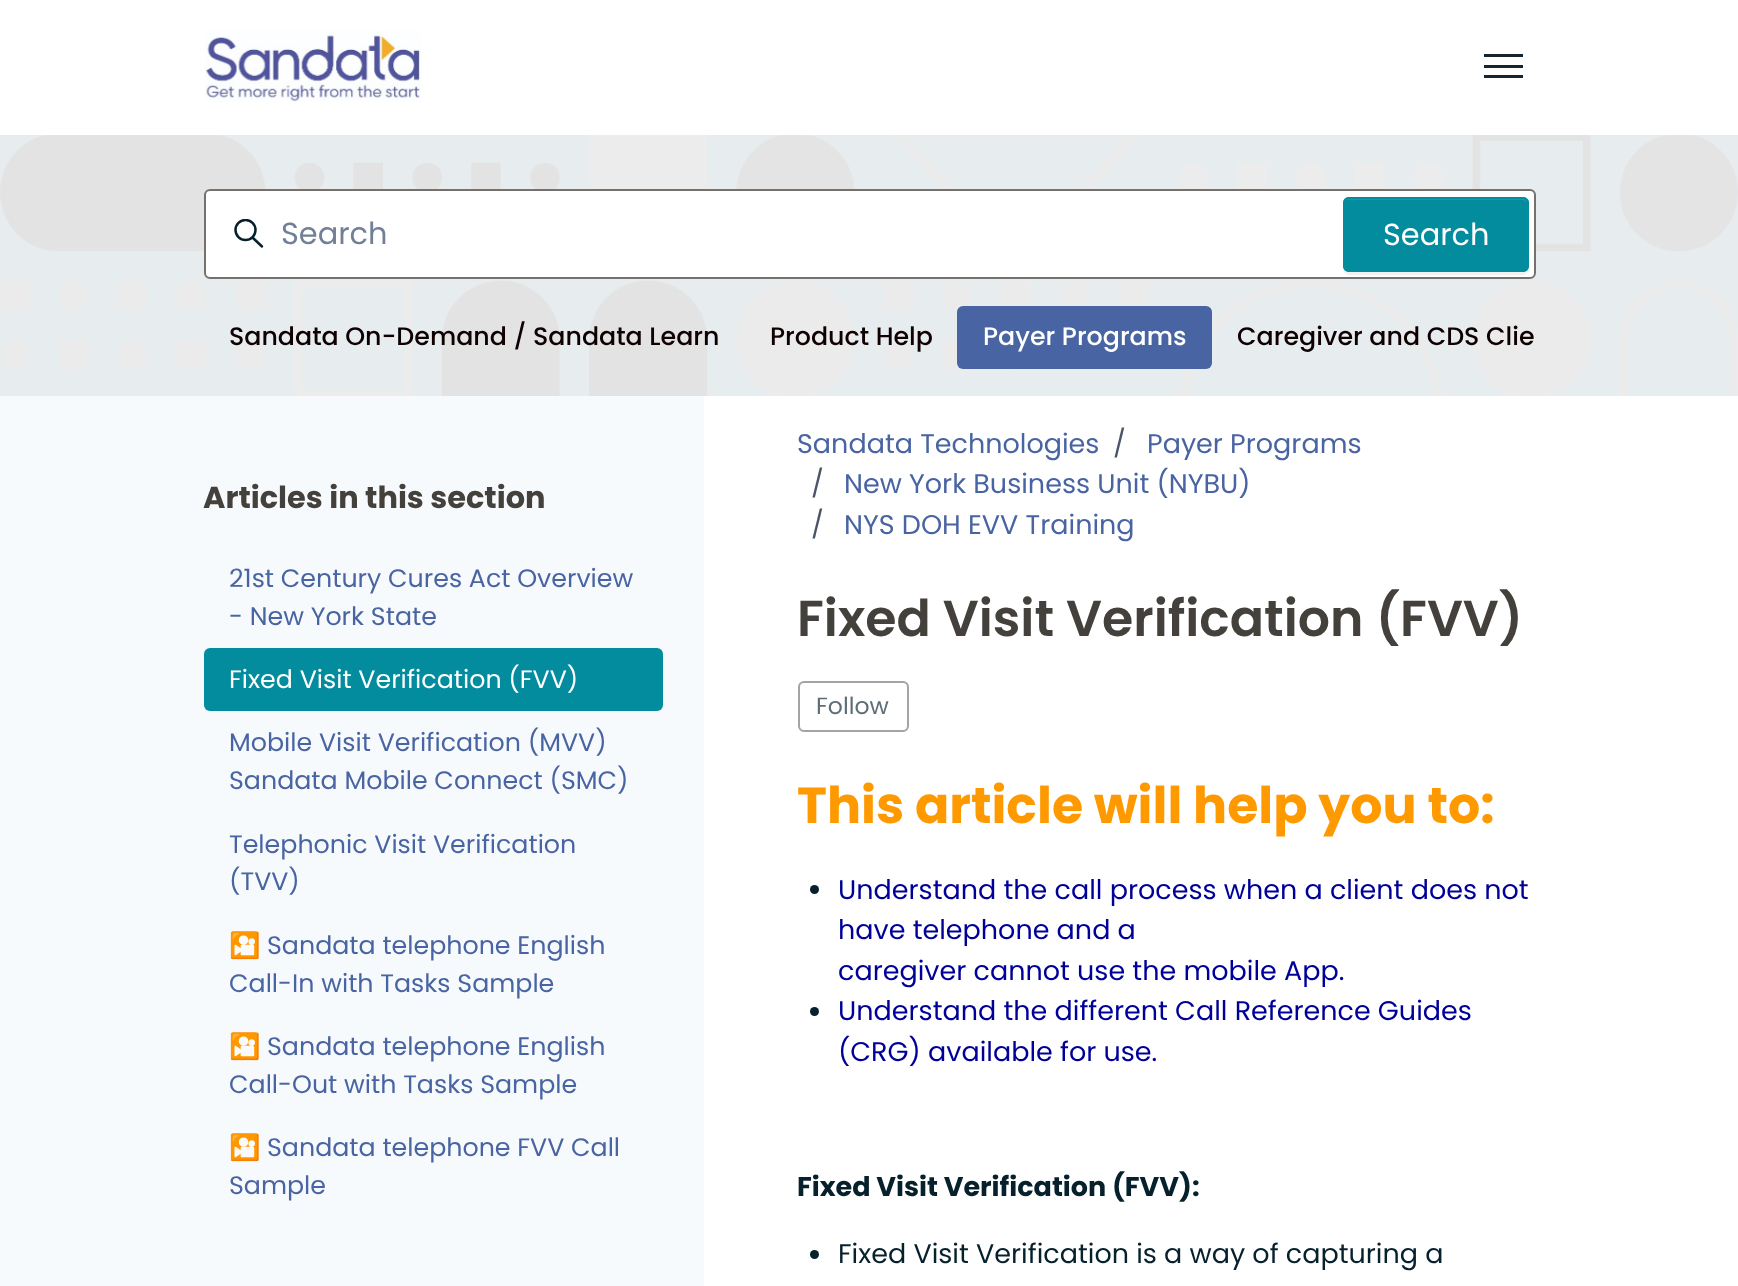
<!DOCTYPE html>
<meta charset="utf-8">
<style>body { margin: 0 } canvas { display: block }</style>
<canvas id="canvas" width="1738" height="1286"></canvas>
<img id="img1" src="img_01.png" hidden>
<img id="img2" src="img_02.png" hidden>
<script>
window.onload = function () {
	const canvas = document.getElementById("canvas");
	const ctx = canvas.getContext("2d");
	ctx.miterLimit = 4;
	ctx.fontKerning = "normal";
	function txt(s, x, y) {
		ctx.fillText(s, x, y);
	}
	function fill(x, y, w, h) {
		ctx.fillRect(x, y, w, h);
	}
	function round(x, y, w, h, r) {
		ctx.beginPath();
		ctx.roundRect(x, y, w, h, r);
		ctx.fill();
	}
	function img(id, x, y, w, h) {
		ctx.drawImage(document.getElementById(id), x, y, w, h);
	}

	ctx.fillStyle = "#FFFFFF";
	fill(0, 0, 1738, 1286);
	img("img1", 205, 30, 216, 72);
	ctx.fillStyle = "#162432";
	fill(1484, 65, 39, 3);
	fill(1484, 54, 39, 3);
	fill(1484, 75, 39, 3);
	ctx.fillStyle = "#E7EDEF";
	fill(0, 135, 1738, 261);
	img("img2", 0, 135, 1738, 261);
	ctx.fillStyle = "#FFFFFF";
	ctx.beginPath();
	ctx.roundRect(205, 190, 1330, 88, 5);
	ctx.fill();
	ctx.strokeStyle = "#76716D";
	ctx.lineWidth = 2;
	ctx.stroke();
	ctx.save();
	ctx.beginPath();
	ctx.rect(234, 219, 30, 30);
	ctx.clip();
	ctx.beginPath();
	ctx.arc(245.5, 230, 10, 0, Math.PI * 2);
	ctx.strokeStyle = "#06202C";
	ctx.lineWidth = 2.5;
	ctx.stroke();
	ctx.restore();
	ctx.beginPath();
	ctx.moveTo(262, 246.5);
	ctx.lineTo(253, 238);
	ctx.strokeStyle = "#06202C";
	ctx.lineWidth = 2.5;
	ctx.lineCap = "round";
	ctx.stroke();
	ctx.fillStyle = "#F2F2F2";
	ctx.beginPath();
	ctx.moveTo(1343, 268);
	ctx.lineTo(1343, 269);
	ctx.bezierCurveTo(1343, 272, 1346, 275, 1349, 275);
	ctx.lineTo(1523, 275);
	ctx.bezierCurveTo(1526, 275, 1529, 272, 1529, 269);
	ctx.lineTo(1529, 206);
	ctx.lineTo(1528, 204);
	ctx.lineTo(1528, 266);
	ctx.bezierCurveTo(1528, 269, 1526, 272, 1522, 272);
	ctx.lineTo(1348, 272);
	ctx.bezierCurveTo(1346, 272, 1344, 270, 1343, 268);
	ctx.closePath();
	ctx.fill();
	ctx.fillStyle = "#038C9E";
	round(1343, 197, 186, 75, 6);
	ctx.fillStyle = "#1C98A8";
	ctx.beginPath();
	ctx.moveTo(1348, 200);
	ctx.lineTo(1522, 200);
	ctx.bezierCurveTo(1525, 200, 1527, 202, 1527, 204);
	ctx.bezierCurveTo(1527, 201, 1526, 199, 1523, 198);
	ctx.lineTo(1348, 198);
	ctx.bezierCurveTo(1345, 199, 1344, 201, 1344, 204);
	ctx.bezierCurveTo(1344, 202, 1346, 200, 1348, 200);
	ctx.closePath();
	ctx.fill();
	ctx.beginPath();
	ctx.roundRect(1344, 198, 184, 73, 5);
	ctx.strokeStyle = "#038C9E";
	ctx.lineWidth = 2;
	ctx.stroke();
	ctx.fillStyle = "#4964A2";
	round(957, 306, 255, 63, 6);
	ctx.fillStyle = "#F7FAFC";
	fill(0, 396, 704, 890);
	ctx.fillStyle = "#038C9E";
	round(204, 648, 459, 63, 6);
	ctx.beginPath();
	ctx.roundRect(799, 682, 109, 49, 5);
	ctx.strokeStyle = "#A6A3A0";
	ctx.stroke();
	ctx.fillStyle = "#06202C";
	ctx.beginPath();
	ctx.arc(814.5, 889.5, 4.5, 0, Math.PI * 2);
	ctx.fill();
	ctx.beginPath();
	ctx.arc(814.5, 1011.5, 4.5, 0, Math.PI * 2);
	ctx.fill();
	ctx.beginPath();
	ctx.arc(814.5, 1254.5, 4.5, 0, Math.PI * 2);
	ctx.fill();
	ctx.font = "30.4px Poppins";
	ctx.fillStyle = "#718096";
	txt("Search", 281, 244);
	ctx.fillStyle = "#FFFFFF";
	txt("Search", 1383, 245);
	ctx.font = "500 25.3px Poppins";
	ctx.fillStyle = "#0F0101";
	txt("Sandata On-Demand / Sandata Learn", 229, 345);
	txt("Product Help", 770, 345);
	ctx.fillStyle = "#FFFFFF";
	txt("Payer Programs", 983, 345);
	ctx.fillStyle = "#0F0101";
	txt("Caregiver and CDS Clie", 1237, 345);
	ctx.font = "bold 30.4px Poppins";
	ctx.fillStyle = "#44413D";
	txt("Articles in this section", 203, 508);
	ctx.font = "25.3px Poppins";
	ctx.fillStyle = "#4964A2";
	txt("21st Century Cures Act Overview", 229, 587);
	txt("- New York State", 229, 625);
	ctx.fillStyle = "#FFFFFF";
	txt("Fixed Visit Verification (FVV)", 229, 688);
	ctx.fillStyle = "#4964A2";
	txt("Mobile Visit Verification (MVV)", 229, 751);
	txt("Sandata Mobile Connect (SMC)", 229, 789);
	txt("Telephonic Visit Verification", 229, 853);
	txt("(TVV)", 229, 890);
	ctx.font = "25.3px Noto Color Emoji";
	txt("🎦", 229, 954);
	ctx.font = "25.3px Poppins";
	txt("Sandata telephone English", 267, 954);
	txt("Call-In with Tasks Sample", 229, 992);
	ctx.font = "25.3px Noto Color Emoji";
	txt("🎦", 229, 1055);
	ctx.font = "25.3px Poppins";
	txt("Sandata telephone English", 267, 1055);
	txt("Call-Out with Tasks Sample", 229, 1093);
	ctx.font = "25.3px Noto Color Emoji";
	txt("🎦", 229, 1156);
	ctx.font = "25.3px Poppins";
	txt("Sandata telephone FVV Call", 267, 1156);
	txt("Sample", 229, 1194);
	ctx.font = "27px Poppins";
	txt("Sandata Technologies", 797, 453);
	ctx.fillStyle = "#4A5568";
	txt("/", 1113, 453);
	ctx.fillStyle = "#4964A2";
	txt("Payer Programs", 1147, 453);
	ctx.fillStyle = "#4A5568";
	txt("/", 811, 493);
	ctx.fillStyle = "#4964A2";
	txt("New York Business Unit (NYBU)", 844, 493);
	ctx.fillStyle = "#4A5568";
	txt("/", 811, 534);
	ctx.fillStyle = "#4964A2";
	txt("NYS DOH EVV Training", 844, 534);
	ctx.font = "600 50.6px Poppins";
	ctx.fillStyle = "#44413D";
	txt("Fixed Visit Verification (FVV)", 797, 636);
	ctx.font = "23.5px Poppins";
	ctx.fillStyle = "#5D6E76";
	txt("Follow", 816, 714);
	ctx.font = "bold 50.6px Poppins";
	ctx.fillStyle = "#FF9900";
	txt("This article will help you to:", 797, 823);
	ctx.font = "27px Poppins";
	ctx.fillStyle = "#000099";
	txt("Understand the call process when a client does not", 838, 899);
	txt("have telephone and a", 838, 939);
	txt("caregiver cannot use the mobile App.", 838, 980);
	txt("Understand the different Call Reference Guides", 838, 1020);
	txt("(CRG) available for use.", 838, 1061);
	ctx.font = "bold 27px Poppins";
	ctx.fillStyle = "#06202C";
	txt("Fixed Visit Verification (FVV):", 797, 1196);
	ctx.font = "27px Poppins";
	txt("Fixed Visit Verification is a way of capturing a", 838, 1263);
};
</script>
